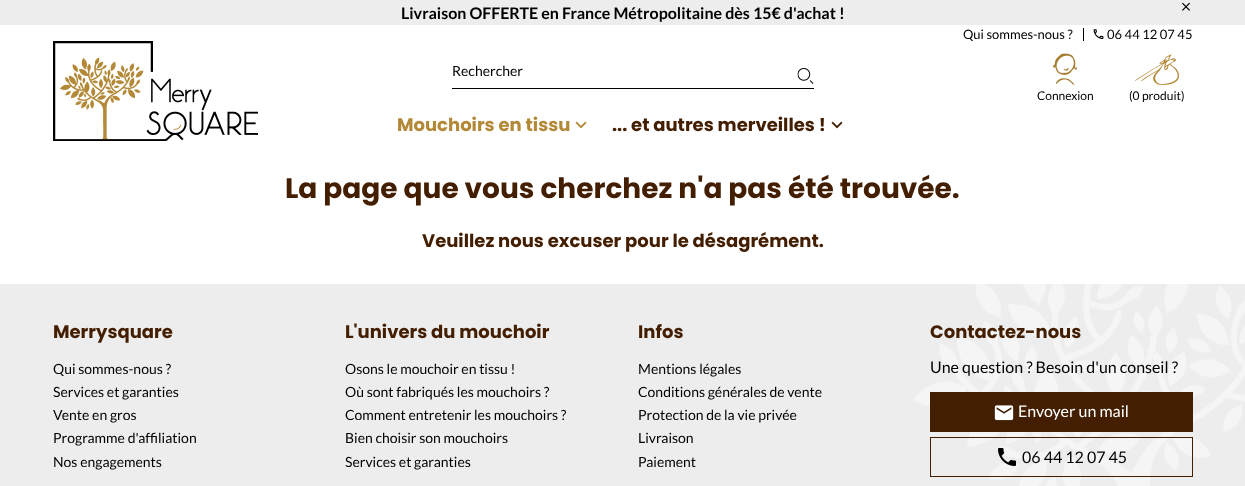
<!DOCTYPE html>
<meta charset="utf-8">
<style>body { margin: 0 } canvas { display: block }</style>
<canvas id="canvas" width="1245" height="486"></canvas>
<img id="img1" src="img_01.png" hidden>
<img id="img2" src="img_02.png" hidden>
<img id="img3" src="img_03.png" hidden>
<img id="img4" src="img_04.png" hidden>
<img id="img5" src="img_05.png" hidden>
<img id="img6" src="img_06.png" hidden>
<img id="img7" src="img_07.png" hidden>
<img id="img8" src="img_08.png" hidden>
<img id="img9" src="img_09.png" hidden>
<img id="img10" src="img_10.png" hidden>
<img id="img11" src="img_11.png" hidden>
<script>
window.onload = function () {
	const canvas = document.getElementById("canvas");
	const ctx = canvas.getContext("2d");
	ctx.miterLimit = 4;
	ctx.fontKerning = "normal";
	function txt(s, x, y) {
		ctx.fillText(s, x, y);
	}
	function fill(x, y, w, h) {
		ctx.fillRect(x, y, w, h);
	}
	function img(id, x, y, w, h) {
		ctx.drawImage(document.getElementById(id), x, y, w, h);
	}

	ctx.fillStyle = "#FFFFFF";
	fill(0, 0, 1245, 486);
	ctx.fillStyle = "#EDEDED";
	fill(0, 0, 1245, 25);
	img("img1", 1182, 2, 8, 9);
	ctx.fillStyle = "#000000";
	fill(1083, 28, 1, 13);
	img("img2", 1093, 29, 11, 10);
	img("img3", 53, 41, 205, 100);
	fill(452, 88, 362, 1);
	img("img4", 797, 68, 17, 16);
	img("img5", 1053, 53, 24, 32);
	img("img6", 1135, 54, 44, 31);
	img("img7", 575, 121, 12, 8);
	img("img8", 831, 121, 12, 8);
	ctx.fillStyle = "#EDEDED";
	fill(0, 284, 914, 202);
	img("img9", 914, 284, 331, 202);
	ctx.fillStyle = "#431E00";
	fill(930, 392, 263, 40);
	img("img10", 994, 405, 20, 16);
	ctx.strokeStyle = "#431E00";
	ctx.strokeRect(930.5, 437.5, 262, 39);
	img("img11", 998, 448, 18, 18);
	ctx.font = "bold 16px Lato";
	ctx.fillStyle = "#000000";
	txt("Livraison OFFERTE en France Métropolitaine dès 15€ d'achat !", 401, 19);
	ctx.font = "13px Lato";
	txt("Qui sommes-nous ?", 963, 39);
	txt("06 44 12 07 45", 1107, 39);
	ctx.font = "14px Lato";
	txt("Rechercher", 452, 76);
	ctx.font = "12px Lato";
	txt("Connexion", 1037, 100);
	txt("(0 produit)", 1129, 100);
	ctx.font = "bold 18px Poppins";
	ctx.fillStyle = "#B38836";
	txt("Mouchoirs en tissu", 397, 131);
	ctx.fillStyle = "#431E00";
	txt("... et autres merveilles !", 612, 131);
	ctx.font = "bold 28px Poppins";
	txt("La page que vous cherchez n'a pas été trouvée.", 285, 198);
	ctx.font = "bold 18px Poppins";
	txt("Veuillez nous excuser pour le désagrément.", 422, 247);
	txt("Merrysquare", 53, 338);
	ctx.font = "14px Lato";
	ctx.fillStyle = "#000000";
	txt("Qui sommes-nous ?", 53, 374);
	txt("Services et garanties", 53, 397);
	txt("Vente en gros", 53, 420);
	txt("Programme d'affiliation", 53, 443);
	txt("Nos engagements", 53, 467);
	ctx.font = "bold 18px Poppins";
	ctx.fillStyle = "#431E00";
	txt("L'univers du mouchoir", 345, 338);
	ctx.font = "14px Lato";
	ctx.fillStyle = "#000000";
	txt("Osons le mouchoir en tissu !", 345, 374);
	txt("Où sont fabriqués les mouchoirs ?", 345, 397);
	txt("Comment entretenir les mouchoirs ?", 345, 420);
	txt("Bien choisir son mouchoirs", 345, 443);
	txt("Services et garanties", 345, 467);
	ctx.font = "bold 18px Poppins";
	ctx.fillStyle = "#431E00";
	txt("Infos", 638, 338);
	ctx.font = "14px Lato";
	ctx.fillStyle = "#000000";
	txt("Mentions légales", 638, 374);
	txt("Conditions générales de vente", 638, 397);
	txt("Protection de la vie privée", 638, 420);
	txt("Livraison", 638, 443);
	txt("Paiement", 638, 467);
	ctx.font = "bold 18px Poppins";
	ctx.fillStyle = "#431E00";
	txt("Contactez-nous", 930, 338);
	ctx.font = "16px Lato";
	ctx.fillStyle = "#000000";
	txt("Une question ? Besoin d'un conseil ?", 930, 373);
	ctx.fillStyle = "#FFFFFF";
	txt("Envoyer un mail", 1018, 417);
	ctx.fillStyle = "#000000";
	txt("06 44 12 07 45", 1022, 463);
};
</script>
